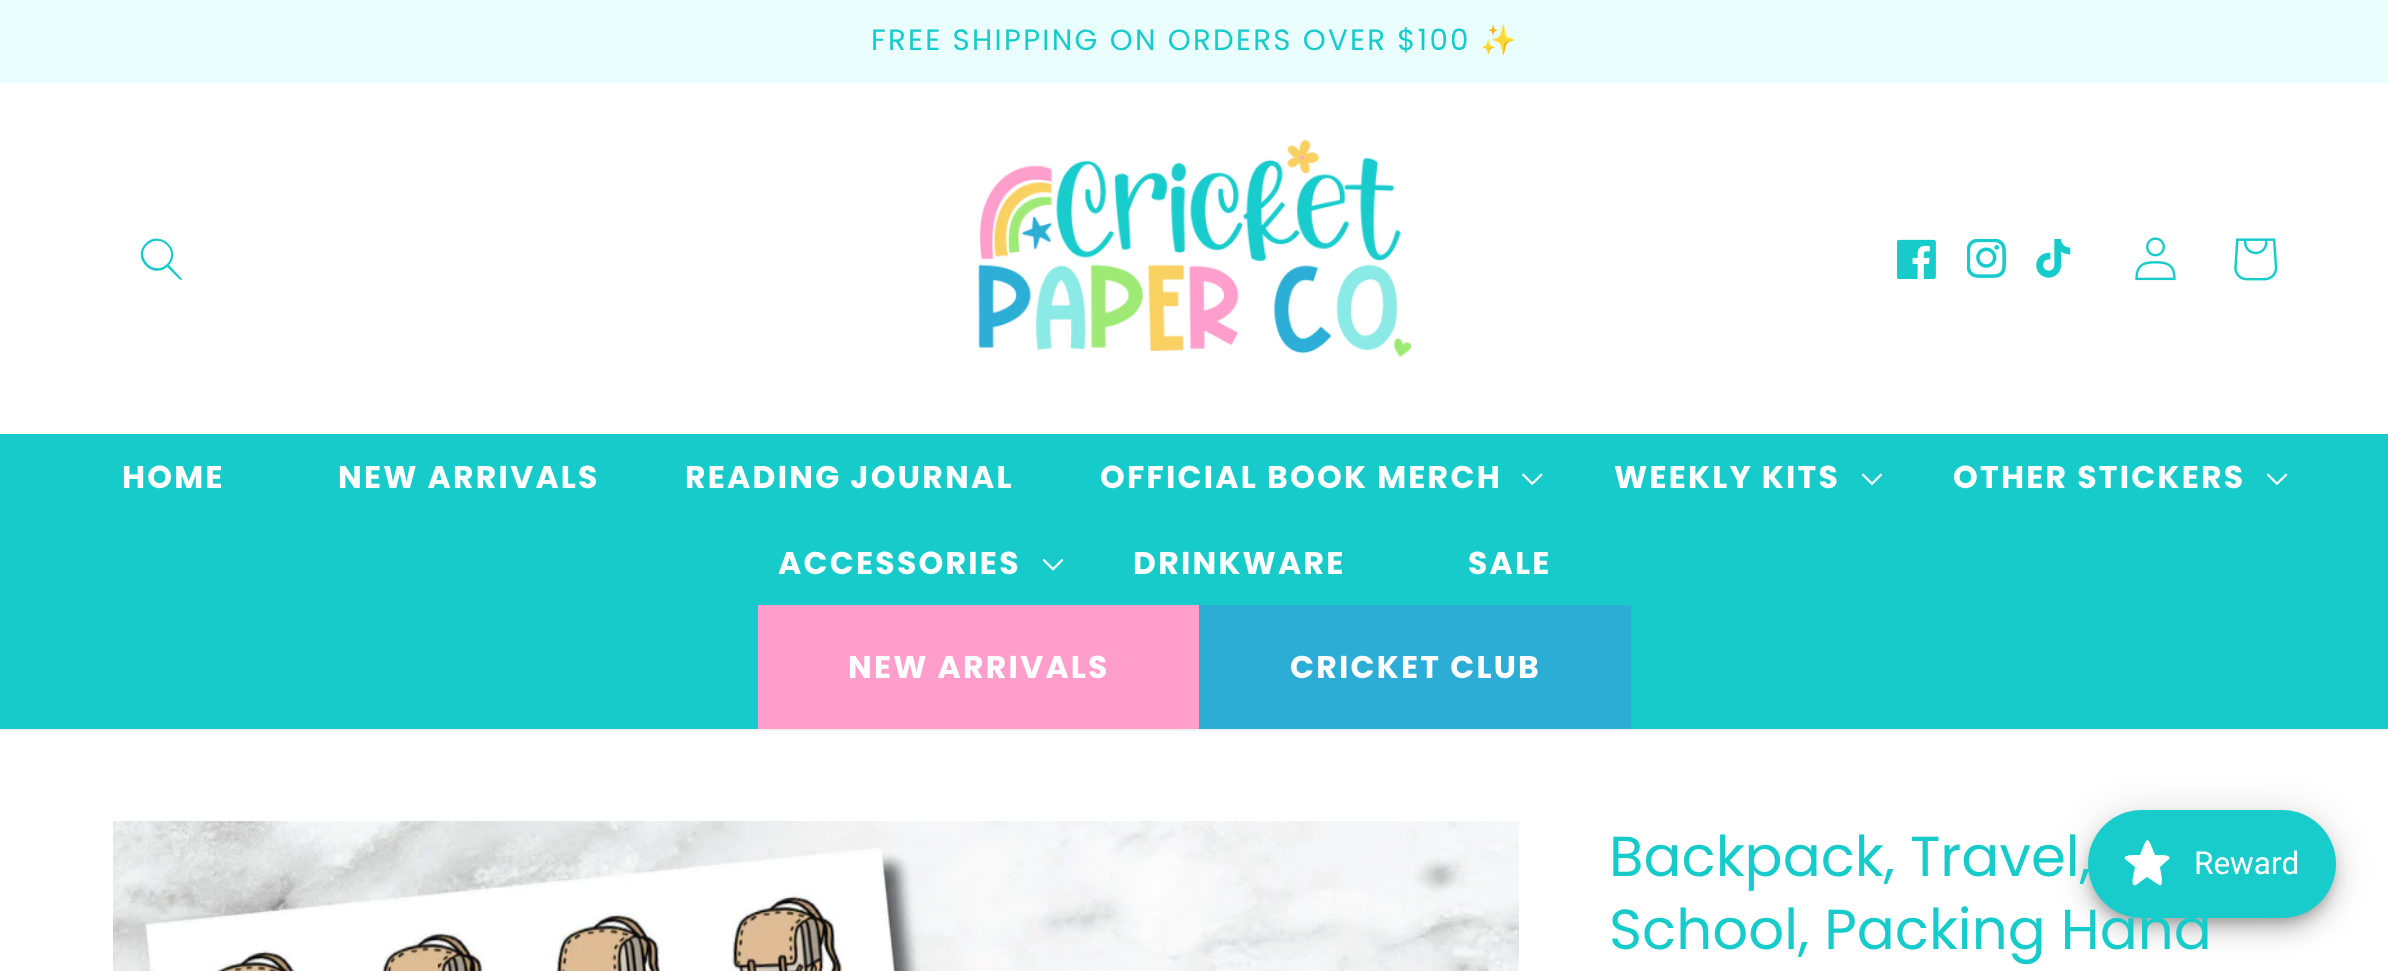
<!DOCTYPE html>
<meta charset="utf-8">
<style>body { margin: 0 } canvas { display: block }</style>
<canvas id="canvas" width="2388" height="971"></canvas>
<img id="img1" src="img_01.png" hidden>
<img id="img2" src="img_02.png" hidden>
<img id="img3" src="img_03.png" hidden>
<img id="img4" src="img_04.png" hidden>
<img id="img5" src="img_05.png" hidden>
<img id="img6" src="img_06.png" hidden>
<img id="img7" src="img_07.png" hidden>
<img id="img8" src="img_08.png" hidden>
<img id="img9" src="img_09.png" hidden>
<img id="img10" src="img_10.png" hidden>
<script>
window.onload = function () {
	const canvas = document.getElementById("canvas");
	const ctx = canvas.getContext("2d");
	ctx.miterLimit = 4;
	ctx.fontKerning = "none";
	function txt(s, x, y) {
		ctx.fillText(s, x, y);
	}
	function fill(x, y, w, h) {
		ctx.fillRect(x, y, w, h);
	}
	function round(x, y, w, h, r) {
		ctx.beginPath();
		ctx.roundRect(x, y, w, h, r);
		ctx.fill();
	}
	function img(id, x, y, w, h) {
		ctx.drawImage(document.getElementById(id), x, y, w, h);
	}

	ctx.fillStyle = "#FFFFFF";
	fill(0, 0, 2388, 971);
	ctx.fillStyle = "#EAFFFD";
	fill(0, 0, 2388, 83);
	ctx.fillStyle = "#F2F2F2";
	fill(0, 729, 2388, 2);
	ctx.fillStyle = "#18CBCB";
	ctx.beginPath();
	ctx.moveTo(167, 264);
	ctx.bezierCurveTo(154, 277, 135, 257, 147, 245);
	ctx.bezierCurveTo(160, 232, 180, 251, 167, 264);
	ctx.closePath();
	ctx.moveTo(167, 267);
	ctx.bezierCurveTo(152, 280, 131, 257, 146, 243);
	ctx.bezierCurveTo(160, 229, 183, 250, 169, 265);
	ctx.lineTo(182, 279);
	ctx.lineTo(182, 280);
	ctx.bezierCurveTo(180, 281, 169, 268, 167, 267);
	ctx.closePath();
	ctx.fill("evenodd");
	img("img1", 978, 139, 434, 218);
	img("img2", 1897, 239, 39, 40);
	img("img3", 1967, 239, 39, 39);
	img("img4", 2036, 239, 35, 39);
	img("img5", 2135, 237, 41, 44);
	img("img6", 2234, 238, 44, 43);
	fill(0, 434, 2388, 295);
	img("img7", 1522, 473, 21, 12);
	img("img8", 1861, 473, 22, 12);
	img("img8", 2266, 473, 22, 12);
	img("img9", 1042, 559, 22, 12);
	ctx.fillStyle = "#FF9DCB";
	fill(758, 605, 441, 124);
	ctx.fillStyle = "#2BADD5";
	fill(1199, 605, 432, 124);
	img("img10", 113, 821, 1406, 150);
	ctx.fillStyle = "rgba(0, 0, 0, 0.12)";
	ctx.filter = "blur(20px)";
	ctx.beginPath();
	ctx.roundRect(2088, 812, 248, 108, 54);
	ctx.fill();
	ctx.filter = "none";
	ctx.fillStyle = "rgba(0, 0, 0, 0.14)";
	ctx.filter = "blur(11px)";
	ctx.beginPath();
	ctx.roundRect(2088, 824, 248, 108, 54);
	ctx.fill();
	ctx.filter = "none";
	ctx.fillStyle = "rgba(0, 0, 0, 0.2)";
	ctx.filter = "blur(5.5px)";
	ctx.beginPath();
	ctx.roundRect(2090, 819, 243, 104, 52);
	ctx.fill();
	ctx.filter = "none";
	ctx.letterSpacing = "2.25px";
	ctx.font = "29.25px Poppins";
	ctx.fillStyle = "#18CBCB";
	txt("FREE SHIPPING ON ORDERS OVER $100", 871, 50);
	ctx.font = "29.25px Noto Color Emoji";
	txt("✨", 1480, 50);
	ctx.font = "bold 31.5px Poppins";
	ctx.fillStyle = "#FFFFFF";
	txt("HOME", 122, 488);
	txt("NEW ARRIVALS", 338, 488);
	txt("READING JOURNAL", 685, 488);
	txt("OFFICIAL BOOK MERCH", 1100, 488);
	txt("WEEKLY KITS", 1614, 488);
	txt("OTHER STICKERS", 1953, 488);
	txt("ACCESSORIES", 778, 574);
	txt("DRINKWARE", 1133, 574);
	txt("SALE", 1468, 574);
	txt("NEW ARRIVALS", 848, 678);
	txt("CRICKET CLUB", 1290, 678);
	ctx.letterSpacing = "0px";
	ctx.font = "56.25px Poppins";
	ctx.fillStyle = "#18CBCB";
	txt("Backpack, Travel,", 1609, 876);
	txt("School, Packing Hand", 1609, 949);
	ctx.fillStyle = "#18CCCC";
	round(2088, 810, 248, 108, 54);
	ctx.fillStyle = "#FFFFFF";
	ctx.beginPath();
	ctx.moveTo(2135, 867);
	ctx.lineTo(2125, 859);
	ctx.bezierCurveTo(2122, 854, 2138, 855, 2140, 855);
	ctx.bezierCurveTo(2148, 835, 2147, 835, 2155, 855);
	ctx.bezierCurveTo(2157, 855, 2173, 854, 2169, 859);
	ctx.lineTo(2160, 867);
	ctx.bezierCurveTo(2160, 869, 2165, 888, 2159, 885);
	ctx.lineTo(2147, 877);
	ctx.lineTo(2136, 885);
	ctx.bezierCurveTo(2129, 888, 2135, 869, 2135, 867);
	ctx.closePath();
	ctx.fill("evenodd");
	ctx.font = "31.5px Roboto";
	txt("Reward", 2194, 874);
};
</script>
